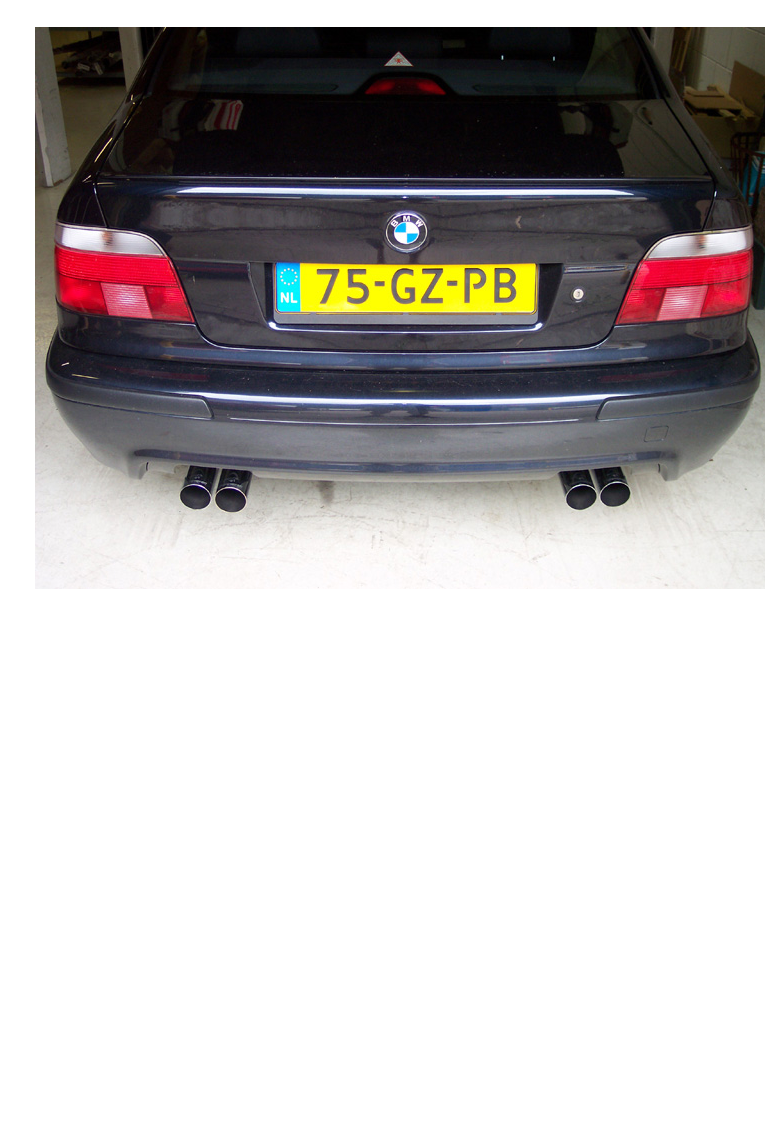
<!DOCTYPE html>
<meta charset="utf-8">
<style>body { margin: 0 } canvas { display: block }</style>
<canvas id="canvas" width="765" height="1144"></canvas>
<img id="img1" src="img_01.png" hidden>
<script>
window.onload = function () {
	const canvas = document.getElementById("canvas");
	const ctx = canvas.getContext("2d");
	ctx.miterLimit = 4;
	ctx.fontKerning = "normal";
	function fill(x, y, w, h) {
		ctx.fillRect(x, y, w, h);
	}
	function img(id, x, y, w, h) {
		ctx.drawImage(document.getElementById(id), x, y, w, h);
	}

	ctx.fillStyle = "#FFFFFF";
	fill(0, 0, 765, 1144);
	img("img1", 35, 27, 730, 562);
};
</script>
